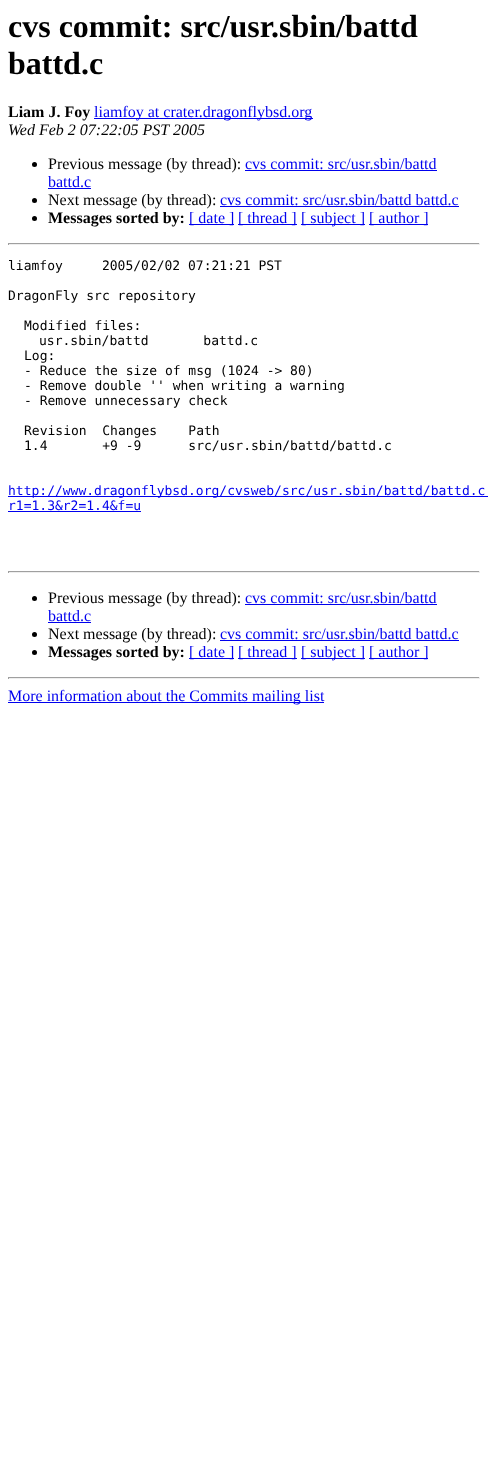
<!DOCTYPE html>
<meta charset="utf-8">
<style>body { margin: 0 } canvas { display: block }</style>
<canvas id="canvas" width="488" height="1467"></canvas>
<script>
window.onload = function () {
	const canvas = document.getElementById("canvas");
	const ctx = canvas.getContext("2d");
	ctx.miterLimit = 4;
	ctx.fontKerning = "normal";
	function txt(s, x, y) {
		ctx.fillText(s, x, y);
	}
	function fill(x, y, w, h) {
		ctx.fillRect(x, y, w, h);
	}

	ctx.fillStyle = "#FFFFFF";
	fill(0, 0, 488, 1467);
	ctx.fillStyle = "#0000EE";
	fill(94, 118, 219, 1);
	ctx.fillStyle = "#000000";
	ctx.beginPath();
	ctx.arc(34.5, 164.5, 2.5, 0, Math.PI * 2);
	ctx.fill();
	ctx.fillStyle = "#0000EE";
	fill(245, 170, 192, 1);
	fill(48, 188, 43, 1);
	ctx.fillStyle = "#000000";
	ctx.beginPath();
	ctx.arc(34.5, 200.5, 2.5, 0, Math.PI * 2);
	ctx.fill();
	ctx.fillStyle = "#0000EE";
	fill(220, 206, 239, 1);
	ctx.fillStyle = "#000000";
	ctx.beginPath();
	ctx.arc(34.5, 218.5, 2.5, 0, Math.PI * 2);
	ctx.fill();
	ctx.fillStyle = "#0000EE";
	fill(189, 224, 45, 1);
	fill(238, 224, 59, 1);
	fill(301, 224, 64, 1);
	fill(369, 224, 59, 1);
	ctx.fillStyle = "#9F9F9F";
	fill(8, 243, 472, 1);
	ctx.fillStyle = "#EEEEEE";
	fill(479, 243, 1, 2);
	fill(8, 244, 472, 1);
	ctx.fillStyle = "#9F9F9F";
	fill(8, 243, 1, 2);
	ctx.fillStyle = "#0000EE";
	fill(8, 496, 480, 1);
	fill(8, 511, 133, 1);
	ctx.fillStyle = "#9F9F9F";
	fill(8, 571, 472, 1);
	ctx.fillStyle = "#EEEEEE";
	fill(479, 571, 1, 2);
	fill(8, 572, 472, 1);
	ctx.fillStyle = "#9F9F9F";
	fill(8, 571, 1, 2);
	ctx.fillStyle = "#000000";
	ctx.beginPath();
	ctx.arc(34.5, 598.5, 2.5, 0, Math.PI * 2);
	ctx.fill();
	ctx.fillStyle = "#0000EE";
	fill(245, 604, 192, 1);
	fill(48, 622, 43, 1);
	ctx.fillStyle = "#000000";
	ctx.beginPath();
	ctx.arc(34.5, 634.5, 2.5, 0, Math.PI * 2);
	ctx.fill();
	ctx.fillStyle = "#0000EE";
	fill(220, 640, 239, 1);
	ctx.fillStyle = "#000000";
	ctx.beginPath();
	ctx.arc(34.5, 652.5, 2.5, 0, Math.PI * 2);
	ctx.fill();
	ctx.fillStyle = "#0000EE";
	fill(189, 658, 45, 1);
	fill(238, 658, 59, 1);
	fill(301, 658, 64, 1);
	fill(369, 658, 59, 1);
	ctx.fillStyle = "#9F9F9F";
	fill(8, 677, 472, 1);
	ctx.fillStyle = "#EEEEEE";
	fill(479, 677, 1, 2);
	fill(8, 678, 472, 1);
	ctx.fillStyle = "#9F9F9F";
	fill(8, 677, 1, 2);
	ctx.fillStyle = "#0000EE";
	fill(8, 702, 316, 1);
	ctx.font = "bold 32px Liberation Serif";
	ctx.fillStyle = "#000000";
	txt("cvs commit: src/usr.sbin/battd", 8, 37);
	txt("battd.c", 8, 74);
	ctx.font = "bold 16px Liberation Serif";
	txt("Liam J. Foy", 8, 117);
	ctx.font = "16px Liberation Serif";
	ctx.fillStyle = "#0000EE";
	txt("liamfoy at crater.dragonflybsd.org", 94, 117);
	ctx.font = "italic 16px Liberation Serif";
	ctx.fillStyle = "#000000";
	txt("Wed Feb 2 07:22:05 PST 2005", 8, 135);
	ctx.font = "16px Liberation Serif";
	txt("Previous message (by thread):", 48, 169);
	ctx.fillStyle = "#0000EE";
	txt("cvs commit: src/usr.sbin/battd", 245, 169);
	txt("battd.c", 48, 187);
	ctx.fillStyle = "#000000";
	txt("Next message (by thread):", 48, 205);
	ctx.fillStyle = "#0000EE";
	txt("cvs commit: src/usr.sbin/battd battd.c", 220, 205);
	ctx.font = "bold 16px Liberation Serif";
	ctx.fillStyle = "#000000";
	txt("Messages sorted by:", 48, 223);
	ctx.font = "16px Liberation Serif";
	ctx.fillStyle = "#0000EE";
	txt("[ date ]", 189, 223);
	txt("[ thread ]", 238, 223);
	txt("[ subject ]", 301, 223);
	txt("[ author ]", 369, 223);
	ctx.font = "13px DejaVu Sans Mono";
	ctx.fillStyle = "#000000";
	txt("liamfoy     2005/02/02 07:21:21 PST", 8, 270);
	txt("DragonFly src repository", 8, 300);
	txt("Modified files:", 24, 330);
	txt("usr.sbin/battd       battd.c", 39, 345);
	txt("Log:", 24, 360);
	txt("- Reduce the size of msg (1024 -> 80)", 24, 375);
	txt("- Remove double '' when writing a warning", 24, 390);
	txt("- Remove unnecessary check", 24, 405);
	txt("Revision  Changes    Path", 24, 435);
	txt("1.4       +9 -9      src/usr.sbin/battd/battd.c", 24, 450);
	ctx.fillStyle = "#0000EE";
	txt("http://www.dragonflybsd.org/cvsweb/src/usr.sbin/battd/battd.c", 8, 495);
	txt("r1=1.3&r2=1.4&f=u", 8, 510);
	ctx.font = "16px Liberation Serif";
	ctx.fillStyle = "#000000";
	txt("Previous message (by thread):", 48, 603);
	ctx.fillStyle = "#0000EE";
	txt("cvs commit: src/usr.sbin/battd", 245, 603);
	txt("battd.c", 48, 621);
	ctx.fillStyle = "#000000";
	txt("Next message (by thread):", 48, 639);
	ctx.fillStyle = "#0000EE";
	txt("cvs commit: src/usr.sbin/battd battd.c", 220, 639);
	ctx.font = "bold 16px Liberation Serif";
	ctx.fillStyle = "#000000";
	txt("Messages sorted by:", 48, 657);
	ctx.font = "16px Liberation Serif";
	ctx.fillStyle = "#0000EE";
	txt("[ date ]", 189, 657);
	txt("[ thread ]", 238, 657);
	txt("[ subject ]", 301, 657);
	txt("[ author ]", 369, 657);
	txt("More information about the Commits mailing list", 8, 701);
};
</script>
